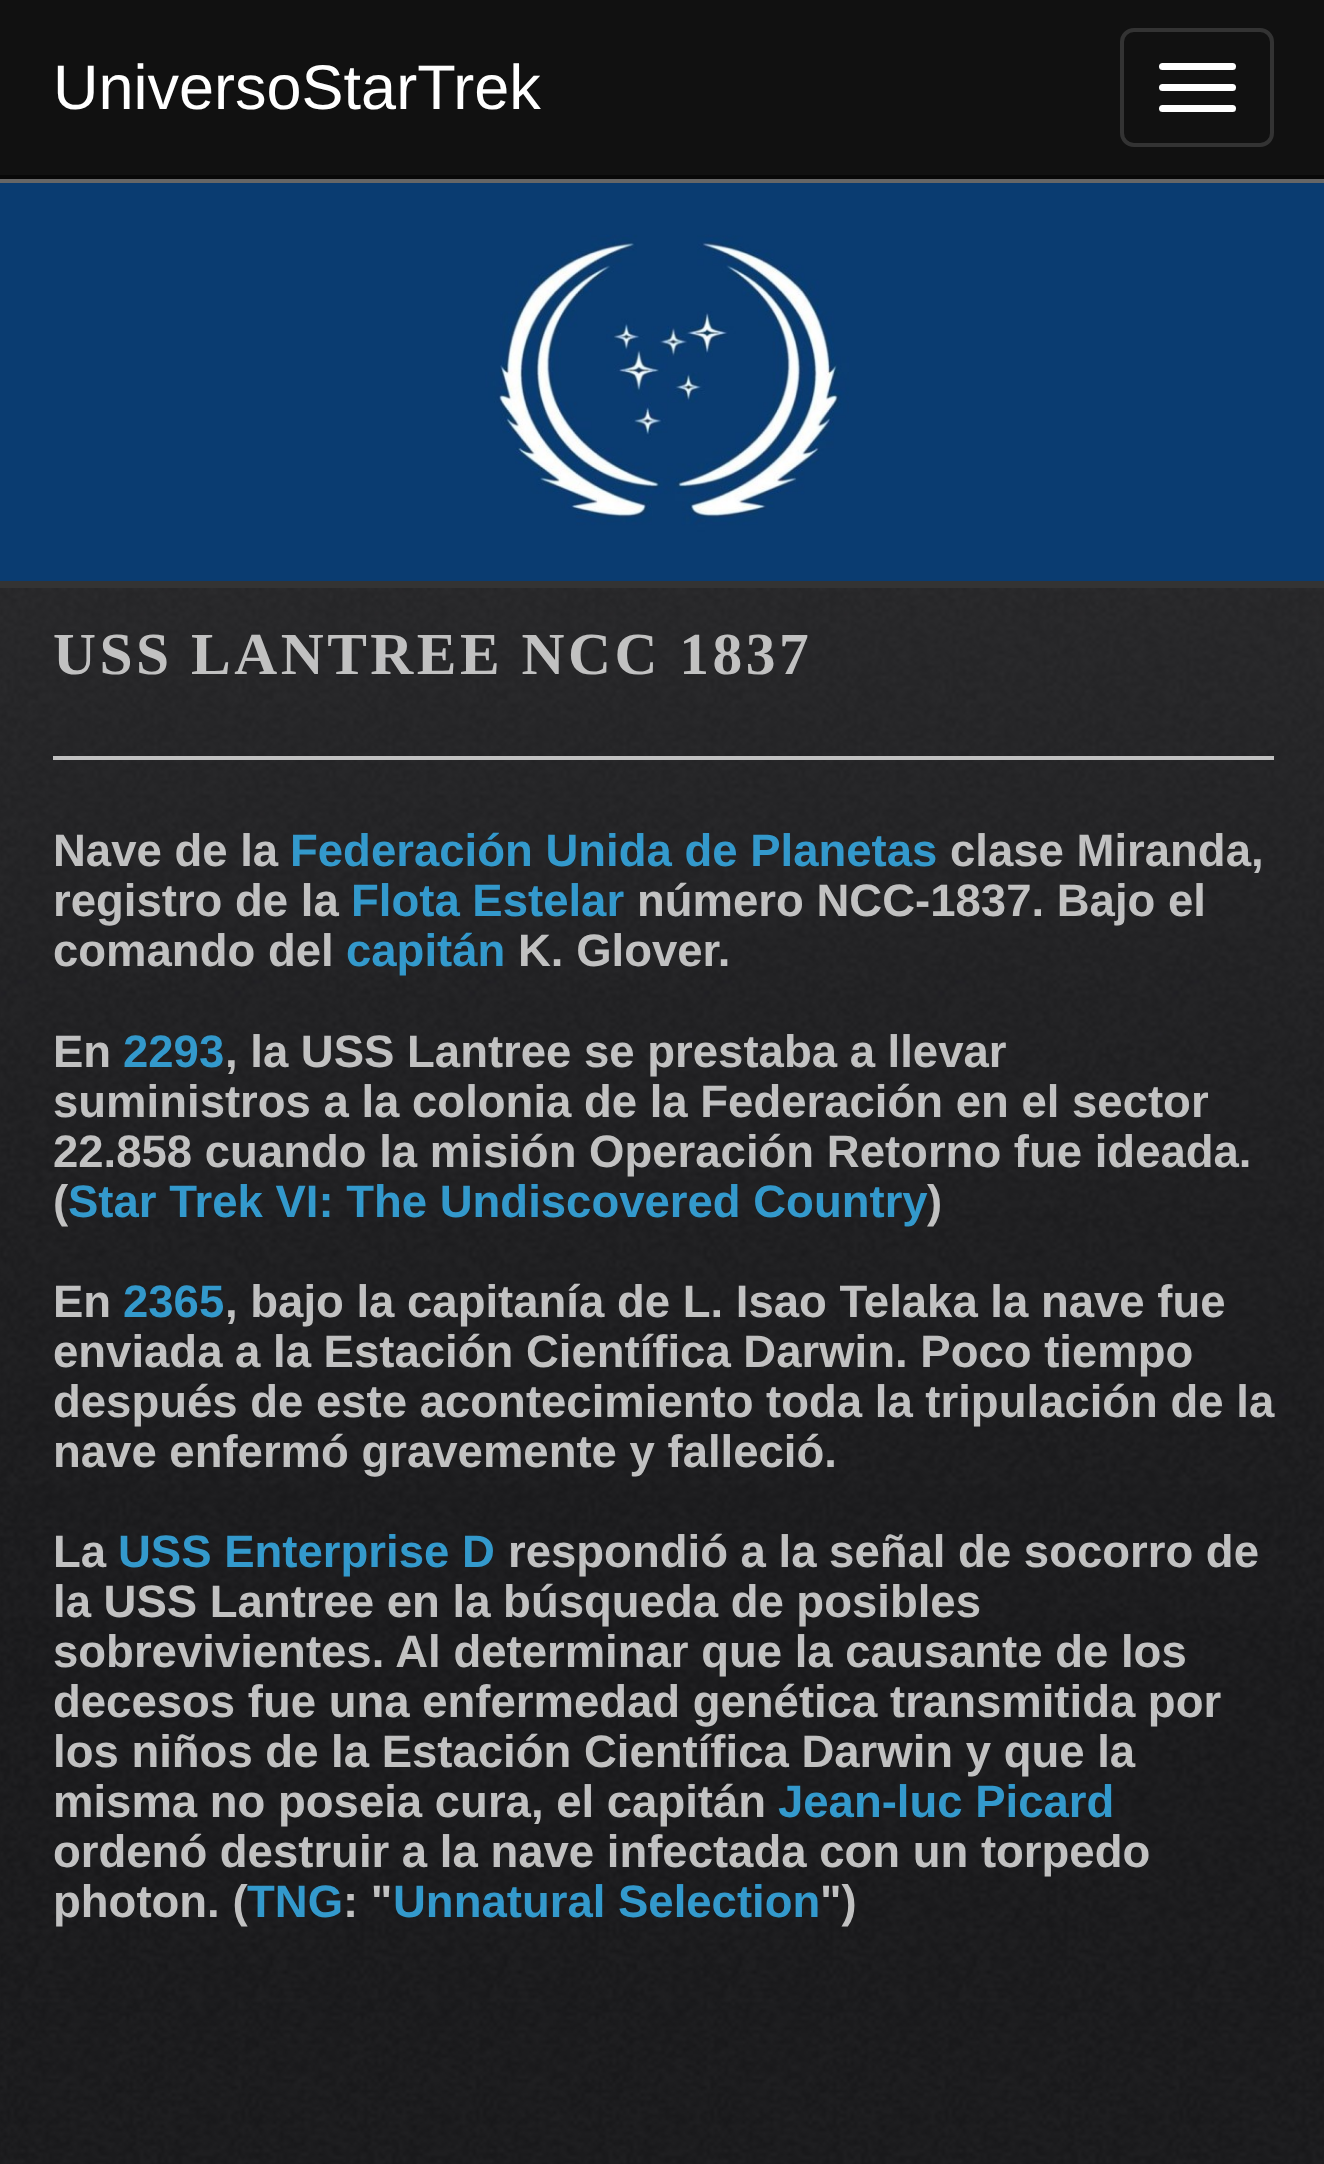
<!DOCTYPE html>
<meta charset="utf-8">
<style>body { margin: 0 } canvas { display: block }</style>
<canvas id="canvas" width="1324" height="2164"></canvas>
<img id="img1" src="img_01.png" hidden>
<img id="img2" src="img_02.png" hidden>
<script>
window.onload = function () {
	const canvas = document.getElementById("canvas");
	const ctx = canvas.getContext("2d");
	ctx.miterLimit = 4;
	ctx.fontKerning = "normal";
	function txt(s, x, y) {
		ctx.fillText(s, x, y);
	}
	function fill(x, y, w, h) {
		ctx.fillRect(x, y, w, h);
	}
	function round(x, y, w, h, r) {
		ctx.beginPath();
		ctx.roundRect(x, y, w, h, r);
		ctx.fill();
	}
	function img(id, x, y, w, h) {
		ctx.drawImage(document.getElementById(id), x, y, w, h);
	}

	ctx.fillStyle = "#FFFFFF";
	fill(0, 0, 1324, 2164);
	ctx.fillStyle = "#666666";
	fill(0, 179, 1324, 4);
	ctx.fillStyle = "#111111";
	fill(0, 0, 1324, 175);
	ctx.fillStyle = "#080808";
	fill(0, 175, 1324, 4);
	ctx.beginPath();
	ctx.roundRect(1122, 30, 150, 115, 12);
	ctx.strokeStyle = "#333333";
	ctx.lineWidth = 4;
	ctx.stroke();
	ctx.fillStyle = "#FFFFFF";
	round(1159, 63, 77, 7, 3.5);
	round(1159, 84, 77, 7, 3.5);
	round(1159, 105, 77, 7, 3.5);
	img("img1", 0, 183, 1324, 398);
	ctx.fillStyle = "#333333";
	fill(0, 581, 1324, 7);
	img("img2", 0, 588, 1324, 1576);
	ctx.fillStyle = "#C1C1C1";
	fill(53, 756, 1221, 4);
	ctx.font = "63px Liberation Sans";
	ctx.fillStyle = "#FFFFFF";
	txt("UniversoStarTrek", 53, 109);
	ctx.letterSpacing = "3.5px";
	ctx.font = "bold 59.5px Liberation Serif";
	ctx.fillStyle = "#C1C1C1";
	txt("USS LANTREE NCC 1837", 53, 674);
	ctx.letterSpacing = "0px";
	ctx.font = "bold 45.5px Liberation Sans";
	txt("Nave de la", 53, 866);
	ctx.fillStyle = "#3399CC";
	txt("Federación Unida de Planetas", 290, 866);
	ctx.fillStyle = "#C1C1C1";
	txt("clase Miranda,", 950, 866);
	txt("registro de la", 53, 916);
	ctx.fillStyle = "#3399CC";
	txt("Flota Estelar", 351, 916);
	ctx.fillStyle = "#C1C1C1";
	txt("número NCC-1837. Bajo el", 637, 916);
	txt("comando del", 53, 966);
	ctx.fillStyle = "#3399CC";
	txt("capitán", 346, 966);
	ctx.fillStyle = "#C1C1C1";
	txt("K. Glover.", 518, 966);
	txt("En", 53, 1067);
	ctx.fillStyle = "#3399CC";
	txt("2293", 123, 1067);
	ctx.fillStyle = "#C1C1C1";
	txt(", la USS Lantree se prestaba a llevar", 225, 1067);
	txt("suministros a la colonia de la Federación en el sector", 53, 1117);
	txt("22.858 cuando la misión Operación Retorno fue ideada.", 53, 1167);
	txt("(", 53, 1217);
	ctx.fillStyle = "#3399CC";
	txt("Star Trek VI: The Undiscovered Country", 68, 1217);
	ctx.fillStyle = "#C1C1C1";
	txt(")", 927, 1217);
	txt("En", 53, 1317);
	ctx.fillStyle = "#3399CC";
	txt("2365", 123, 1317);
	ctx.fillStyle = "#C1C1C1";
	txt(", bajo la capitanía de L. Isao Telaka la nave fue", 225, 1317);
	txt("enviada a la Estación Científica Darwin. Poco tiempo", 53, 1367);
	txt("después de este acontecimiento toda la tripulación de la", 53, 1417);
	txt("nave enfermó gravemente y falleció.", 53, 1467);
	txt("La", 53, 1567);
	ctx.fillStyle = "#3399CC";
	txt("USS Enterprise D", 118, 1567);
	ctx.fillStyle = "#C1C1C1";
	txt("respondió a la señal de socorro de", 508, 1567);
	txt("la USS Lantree en la búsqueda de posibles", 53, 1617);
	txt("sobrevivientes. Al determinar que la causante de los", 53, 1667);
	txt("decesos fue una enfermedad genética transmitida por", 53, 1717);
	txt("los niños de la Estación Científica Darwin y que la", 53, 1767);
	txt("misma no poseia cura, el capitán", 53, 1817);
	ctx.fillStyle = "#3399CC";
	txt("Jean-luc Picard", 778, 1817);
	ctx.fillStyle = "#C1C1C1";
	txt("ordenó destruir a la nave infectada con un torpedo", 53, 1867);
	txt("photon. (", 53, 1917);
	ctx.fillStyle = "#3399CC";
	txt("TNG", 247, 1917);
	ctx.fillStyle = "#C1C1C1";
	txt(": \"", 343, 1917);
	ctx.fillStyle = "#3399CC";
	txt("Unnatural Selection", 393, 1917);
	ctx.fillStyle = "#C1C1C1";
	txt("\")", 820, 1917);
};
</script>
